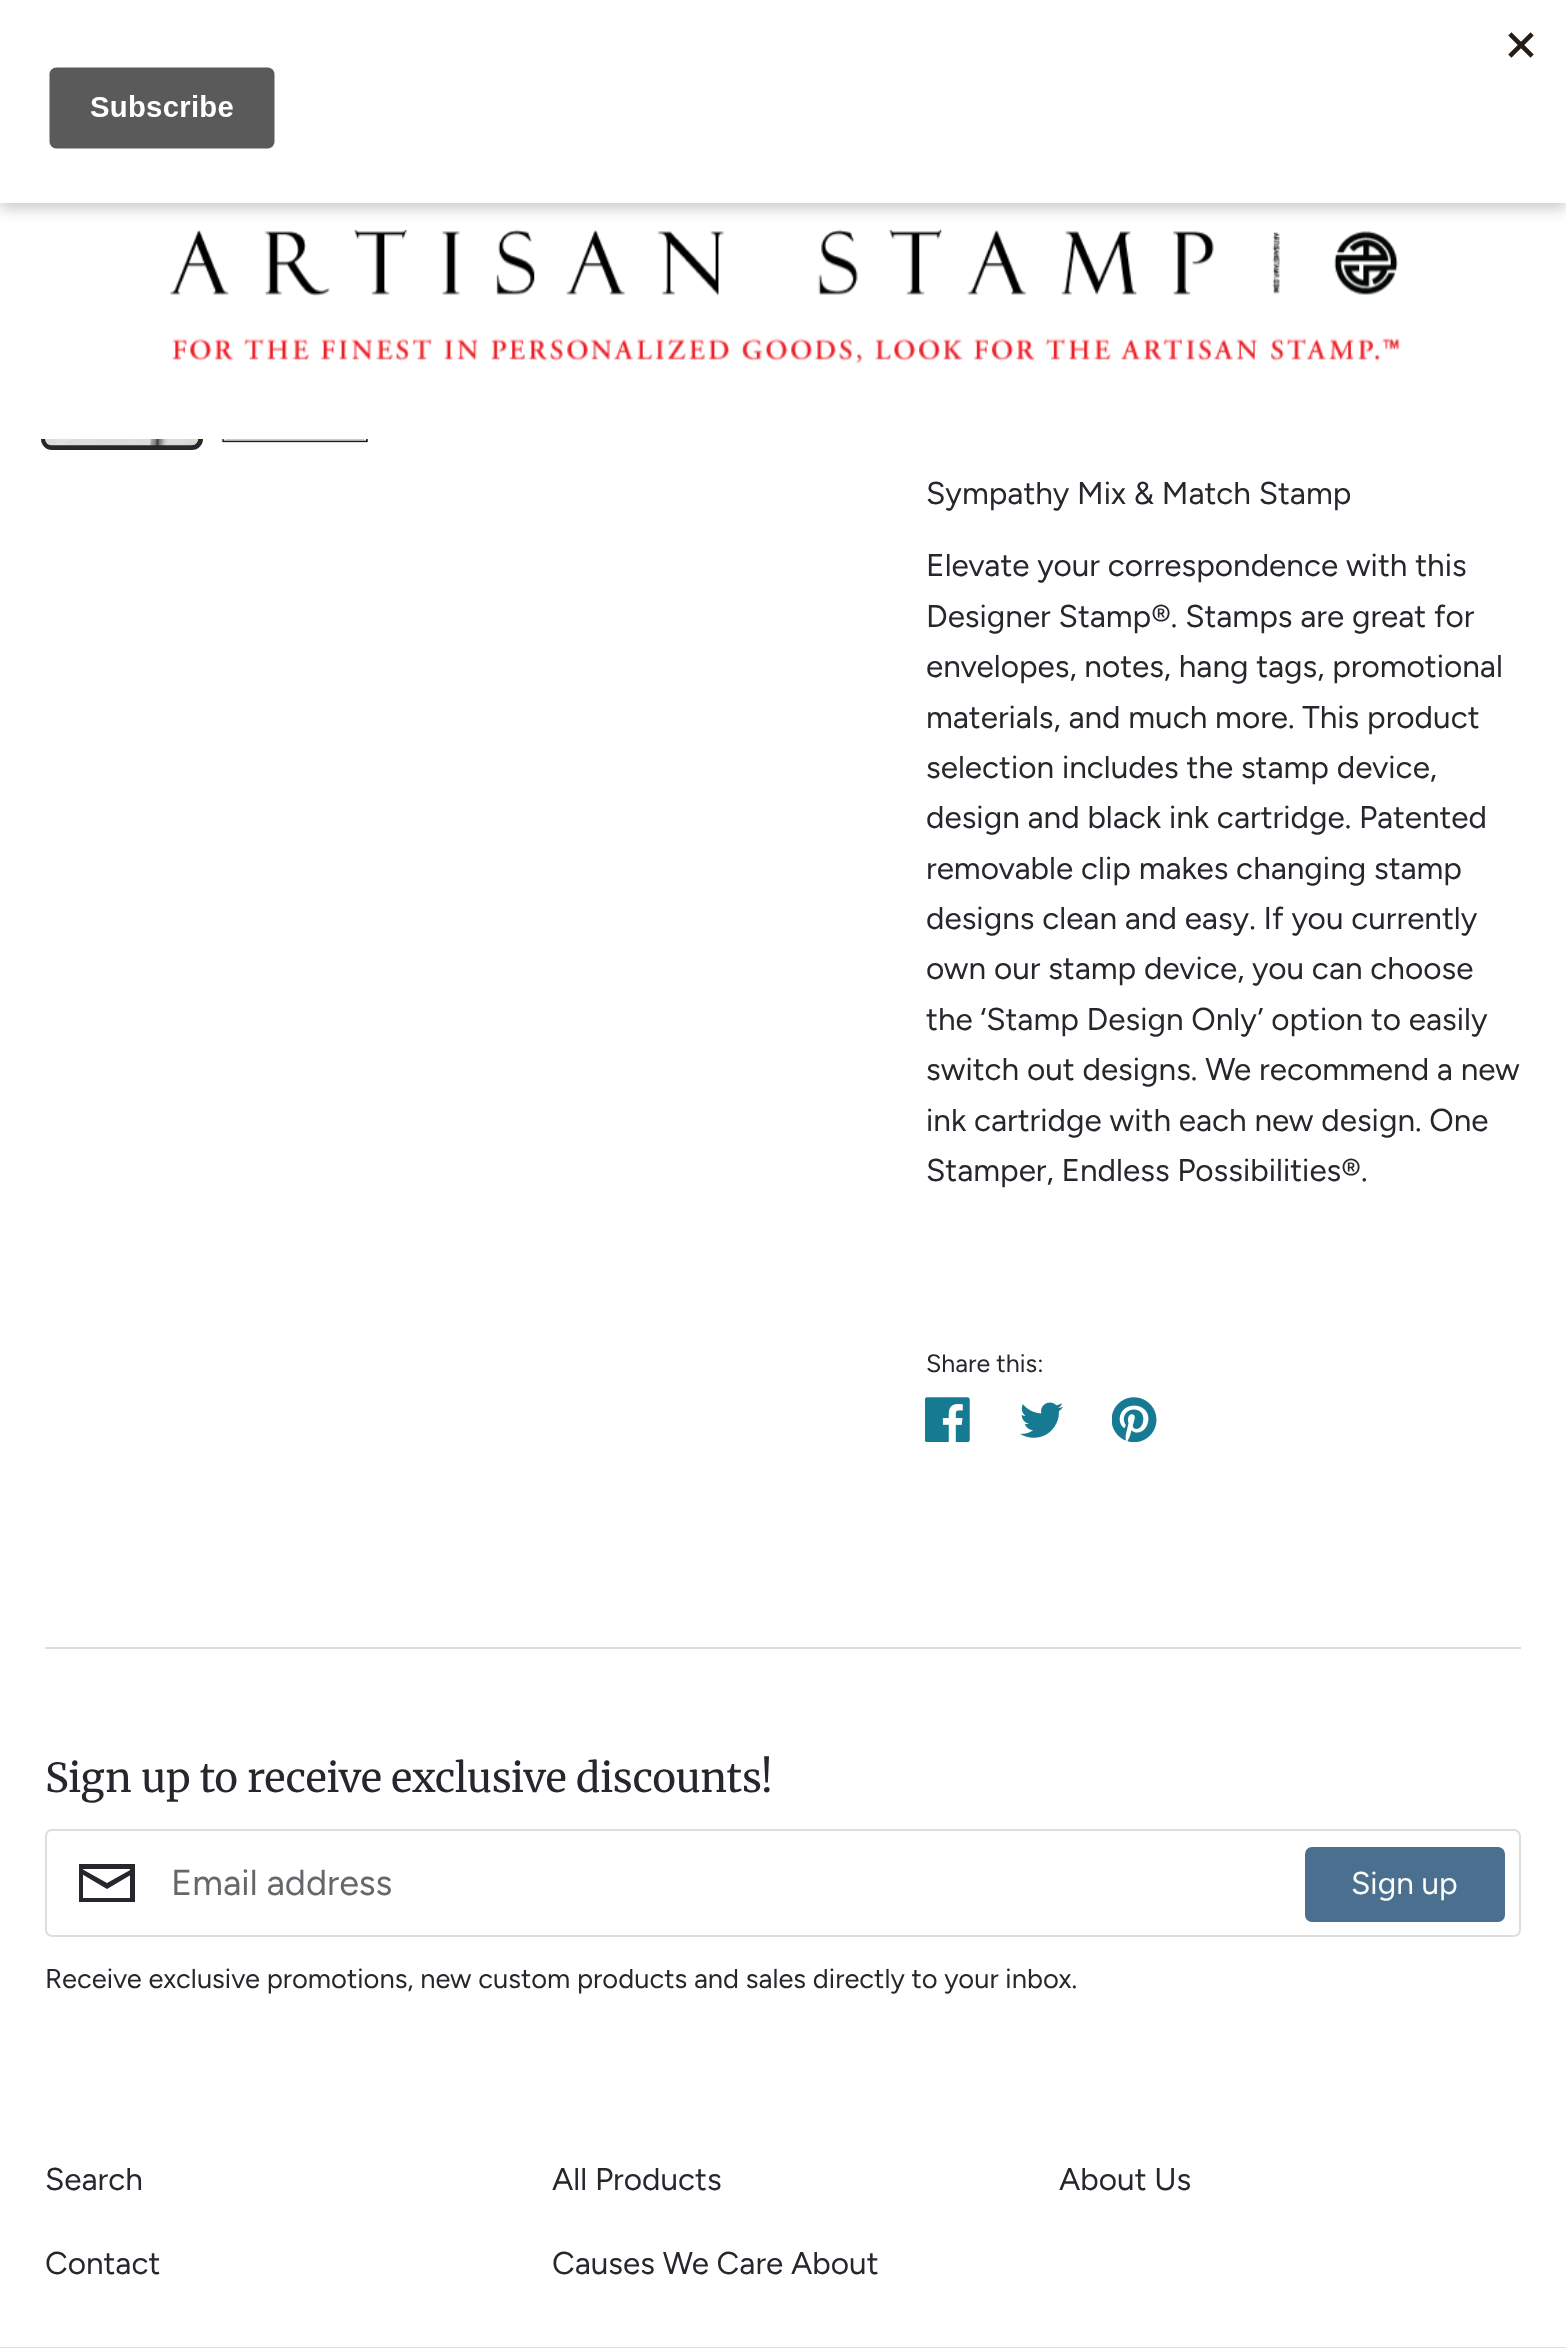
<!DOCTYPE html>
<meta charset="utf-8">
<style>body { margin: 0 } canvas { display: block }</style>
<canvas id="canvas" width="1566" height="2348"></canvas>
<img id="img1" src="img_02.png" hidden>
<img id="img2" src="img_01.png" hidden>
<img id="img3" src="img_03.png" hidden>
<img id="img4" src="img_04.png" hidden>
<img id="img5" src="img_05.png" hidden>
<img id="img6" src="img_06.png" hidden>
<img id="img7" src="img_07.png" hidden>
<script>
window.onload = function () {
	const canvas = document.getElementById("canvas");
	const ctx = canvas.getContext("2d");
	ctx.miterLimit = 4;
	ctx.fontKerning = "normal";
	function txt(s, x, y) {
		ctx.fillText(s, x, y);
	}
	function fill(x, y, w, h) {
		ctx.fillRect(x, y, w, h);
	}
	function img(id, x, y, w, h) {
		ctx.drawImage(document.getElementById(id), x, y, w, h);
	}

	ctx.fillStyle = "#FFFFFF";
	fill(0, 0, 1566, 2348);
	ctx.beginPath();
	ctx.roundRect(43.5, 290.5, 157, 157, 8.5);
	ctx.strokeStyle = "#26262C";
	ctx.lineWidth = 5;
	ctx.stroke();
	fill(41, 288, 162, 151);
	img("img1", 169, 229, 1231, 135);
	ctx.fillStyle = "rgba(0, 0, 0, 0.2)";
	ctx.filter = "blur(7px)";
	ctx.beginPath();
	ctx.rect(0, 7, 1566, 202);
	ctx.fill();
	ctx.filter = "none";
	ctx.fillStyle = "#FFFFFF";
	fill(0, 0, 1566, 203);
	img("img2", 49, 32, 1485, 117);
	ctx.fillStyle = "#DEDEDF";
	fill(0, 2347, 1566, 1);
	img("img3", 45, 439, 153, 7);
	img("img4", 221, 439, 147, 6);
	img("img5", 925, 1397, 45, 45);
	img("img6", 1020, 1402, 44, 36);
	img("img7", 1112, 1397, 45, 45);
	fill(45, 1647, 1476, 2);
	ctx.beginPath();
	ctx.roundRect(46, 1830, 1474, 106, 6);
	ctx.strokeStyle = "#DEDEDF";
	ctx.lineWidth = 2;
	ctx.stroke();
	ctx.fillStyle = "#26262C";
	ctx.beginPath();
	ctx.moveTo(79, 1864);
	ctx.lineTo(135, 1864);
	ctx.lineTo(135, 1902);
	ctx.lineTo(79, 1902);
	ctx.closePath();
	ctx.moveTo(83, 1869);
	ctx.lineTo(83, 1898);
	ctx.lineTo(130, 1898);
	ctx.lineTo(130, 1869);
	ctx.closePath();
	ctx.fill();
	ctx.beginPath();
	ctx.moveTo(108, 1884);
	ctx.lineTo(106, 1884);
	ctx.lineTo(107, 1883);
	ctx.closePath();
	ctx.moveTo(132, 1869);
	ctx.lineTo(134, 1873);
	ctx.lineTo(107, 1889);
	ctx.lineTo(80, 1873);
	ctx.lineTo(82, 1869);
	ctx.lineTo(107, 1883);
	ctx.closePath();
	ctx.fill();
	ctx.fillStyle = "#4B708F";
	ctx.beginPath();
	ctx.roundRect(1306, 1848, 198, 73, 6);
	ctx.fill();
	ctx.strokeStyle = "#4B708F";
	ctx.stroke();
	ctx.font = "31.5px Figtree";
	ctx.fillStyle = "#26262C";
	txt("Sympathy Mix & Match Stamp", 926, 504);
	txt("Elevate your correspondence with this", 926, 576);
	txt("Designer Stamp®. Stamps are great for", 926, 627);
	txt("envelopes, notes, hang tags, promotional", 926, 677);
	txt("materials, and much more. This product", 926, 728);
	txt("selection includes the stamp device,", 926, 778);
	txt("design and black ink cartridge. Patented", 926, 828);
	txt("removable clip makes changing stamp", 926, 879);
	txt("designs clean and easy. If you currently", 926, 929);
	txt("own our stamp device, you can choose", 926, 979);
	txt("the ‘Stamp Design Only’ option to easily", 926, 1030);
	txt("switch out designs. We recommend a new", 926, 1080);
	txt("ink cartridge with each new design. One", 926, 1131);
	txt("Stamper, Endless Possibilities®.", 926, 1181);
	ctx.font = "25px Figtree";
	txt("Share this:", 926, 1372);
	ctx.font = "39.9px Merriweather";
	txt("Sign up to receive exclusive discounts!", 45, 1792);
	ctx.font = "36px Figtree";
	ctx.fillStyle = "#67676B";
	txt("Email address", 171, 1895);
	ctx.font = "31.5px Figtree";
	ctx.fillStyle = "#FDFDFA";
	txt("Sign up", 1351, 1894);
	ctx.font = "27.3px Figtree";
	ctx.fillStyle = "#26262C";
	txt("Receive exclusive promotions, new custom products and sales directly to your inbox.", 45, 1988);
	ctx.font = "31.5px Figtree";
	txt("Search", 45, 2190);
	txt("All Products", 552, 2190);
	txt("About Us", 1059, 2190);
	txt("Contact", 45, 2274);
	txt("Causes We Care About", 552, 2274);
};
</script>
